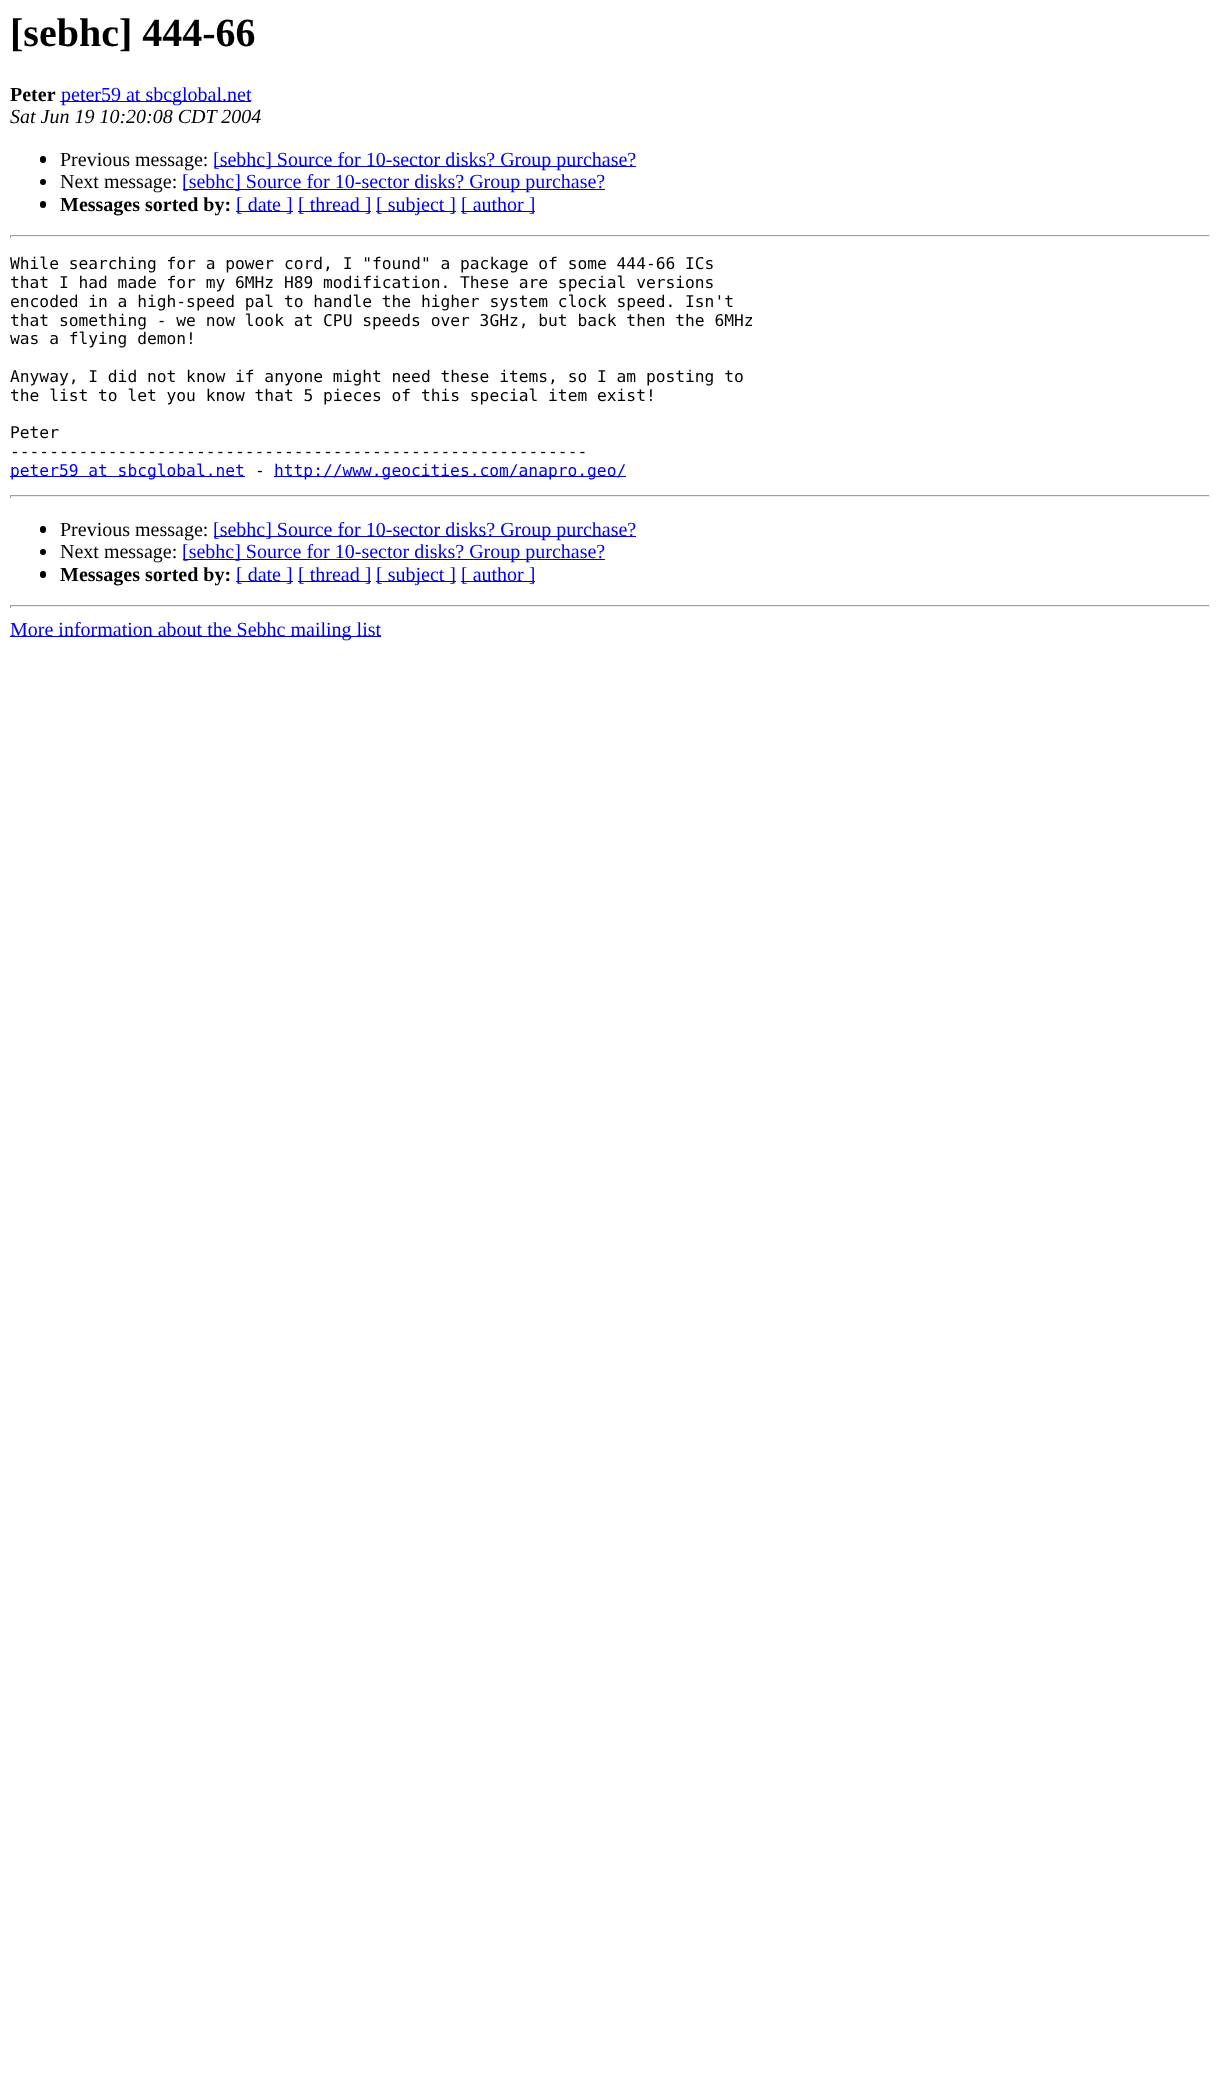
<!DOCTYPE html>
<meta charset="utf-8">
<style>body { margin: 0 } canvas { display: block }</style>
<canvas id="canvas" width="1219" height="2099"></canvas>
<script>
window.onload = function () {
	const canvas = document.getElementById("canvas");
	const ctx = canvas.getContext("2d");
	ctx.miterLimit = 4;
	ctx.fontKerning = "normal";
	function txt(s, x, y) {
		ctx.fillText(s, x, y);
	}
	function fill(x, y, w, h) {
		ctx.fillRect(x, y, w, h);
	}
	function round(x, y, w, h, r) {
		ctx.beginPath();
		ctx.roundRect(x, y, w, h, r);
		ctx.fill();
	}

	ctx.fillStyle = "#FFFFFF";
	fill(0, 0, 1219, 2099);
	ctx.fillStyle = "#0000EE";
	fill(60, 101, 191, 1);
	ctx.fillStyle = "#000000";
	round(40, 156, 6, 7, 3);
	ctx.fillStyle = "#0000EE";
	fill(214, 166, 422, 1);
	ctx.fillStyle = "#000000";
	ctx.beginPath();
	ctx.arc(43, 182, 3, 0, Math.PI * 2);
	ctx.fill();
	ctx.fillStyle = "#0000EE";
	fill(183, 189, 422, 1);
	ctx.fillStyle = "#000000";
	round(40, 201, 6, 7, 3);
	ctx.fillStyle = "#0000EE";
	fill(236, 211, 57, 1);
	fill(298, 211, 73, 1);
	fill(376, 211, 80, 1);
	fill(461, 211, 74, 1);
	ctx.fillStyle = "#9F9F9F";
	fill(10, 235, 1200, 1);
	ctx.fillStyle = "#EEEEEE";
	fill(1209, 235, 1, 3);
	fill(10, 236, 1200, 1);
	ctx.fillStyle = "#9F9F9F";
	fill(10, 235, 1, 3);
	ctx.fillStyle = "#0000EE";
	fill(10, 476, 235, 1);
	fill(274, 476, 352, 1);
	ctx.fillStyle = "#9F9F9F";
	fill(10, 495, 1200, 1);
	ctx.fillStyle = "#EEEEEE";
	fill(1209, 495, 1, 3);
	fill(10, 496, 1200, 1);
	ctx.fillStyle = "#9F9F9F";
	fill(10, 495, 1, 3);
	ctx.fillStyle = "#000000";
	round(40, 526, 6, 7, 3);
	ctx.fillStyle = "#0000EE";
	fill(214, 536, 422, 1);
	ctx.fillStyle = "#000000";
	ctx.beginPath();
	ctx.arc(43, 552, 3, 0, Math.PI * 2);
	ctx.fill();
	ctx.fillStyle = "#0000EE";
	fill(183, 559, 422, 1);
	ctx.fillStyle = "#000000";
	round(40, 571, 6, 7, 3);
	ctx.fillStyle = "#0000EE";
	fill(236, 581, 57, 1);
	fill(298, 581, 73, 1);
	fill(376, 581, 80, 1);
	fill(461, 581, 74, 1);
	ctx.fillStyle = "#9F9F9F";
	fill(10, 605, 1200, 1);
	ctx.fillStyle = "#EEEEEE";
	fill(1209, 605, 1, 3);
	fill(10, 606, 1200, 1);
	ctx.fillStyle = "#9F9F9F";
	fill(10, 605, 1, 3);
	ctx.fillStyle = "#0000EE";
	fill(10, 636, 371, 1);
	ctx.font = "bold 40px Liberation Serif";
	ctx.fillStyle = "#000000";
	txt("[sebhc] 444-66", 10, 46);
	ctx.font = "bold 20px Liberation Serif";
	txt("Peter", 10, 101);
	ctx.font = "20px Liberation Serif";
	ctx.fillStyle = "#0000EE";
	txt("peter59 at sbcglobal.net", 61, 101);
	ctx.font = "italic 20px Liberation Serif";
	ctx.fillStyle = "#000000";
	txt("Sat Jun 19 10:20:08 CDT 2004", 10, 123);
	ctx.font = "20px Liberation Serif";
	txt("Previous message:", 60, 166);
	ctx.fillStyle = "#0000EE";
	txt("[sebhc] Source for 10-sector disks? Group purchase?", 213, 166);
	ctx.fillStyle = "#000000";
	txt("Next message:", 60, 188);
	ctx.fillStyle = "#0000EE";
	txt("[sebhc] Source for 10-sector disks? Group purchase?", 182, 188);
	ctx.font = "bold 20px Liberation Serif";
	ctx.fillStyle = "#000000";
	txt("Messages sorted by:", 60, 211);
	ctx.font = "20px Liberation Serif";
	ctx.fillStyle = "#0000EE";
	txt("[ date ]", 236, 211);
	txt("[ thread ]", 298, 211);
	txt("[ subject ]", 376, 211);
	txt("[ author ]", 461, 211);
	ctx.font = "16.25px DejaVu Sans Mono";
	ctx.fillStyle = "#000000";
	txt("While searching for a power cord, I \"found\" a package of some 444-66 ICs", 10, 269);
	txt("that I had made for my 6MHz H89 modification. These are special versions", 10, 288);
	txt("encoded in a high-speed pal to handle the higher system clock speed. Isn't", 10, 307);
	txt("that something - we now look at CPU speeds over 3GHz, but back then the 6MHz", 10, 326);
	txt("was a flying demon!", 10, 344);
	txt("Anyway, I did not know if anyone might need these items, so I am posting to", 10, 382);
	txt("the list to let you know that 5 pieces of this special item exist!", 10, 401);
	txt("Peter", 10, 438);
	txt("-----------------------------------------------------------", 10, 457);
	ctx.fillStyle = "#0000EE";
	txt("peter59 at sbcglobal.net", 10, 476);
	ctx.fillStyle = "#000000";
	txt("-", 255, 476);
	ctx.fillStyle = "#0000EE";
	txt("http://www.geocities.com/anapro.geo/", 274, 476);
	ctx.font = "20px Liberation Serif";
	ctx.fillStyle = "#000000";
	txt("Previous message:", 60, 536);
	ctx.fillStyle = "#0000EE";
	txt("[sebhc] Source for 10-sector disks? Group purchase?", 213, 536);
	ctx.fillStyle = "#000000";
	txt("Next message:", 60, 558);
	ctx.fillStyle = "#0000EE";
	txt("[sebhc] Source for 10-sector disks? Group purchase?", 182, 558);
	ctx.font = "bold 20px Liberation Serif";
	ctx.fillStyle = "#000000";
	txt("Messages sorted by:", 60, 581);
	ctx.font = "20px Liberation Serif";
	ctx.fillStyle = "#0000EE";
	txt("[ date ]", 236, 581);
	txt("[ thread ]", 298, 581);
	txt("[ subject ]", 376, 581);
	txt("[ author ]", 461, 581);
	txt("More information about the Sebhc mailing list", 10, 636);
};
</script>
